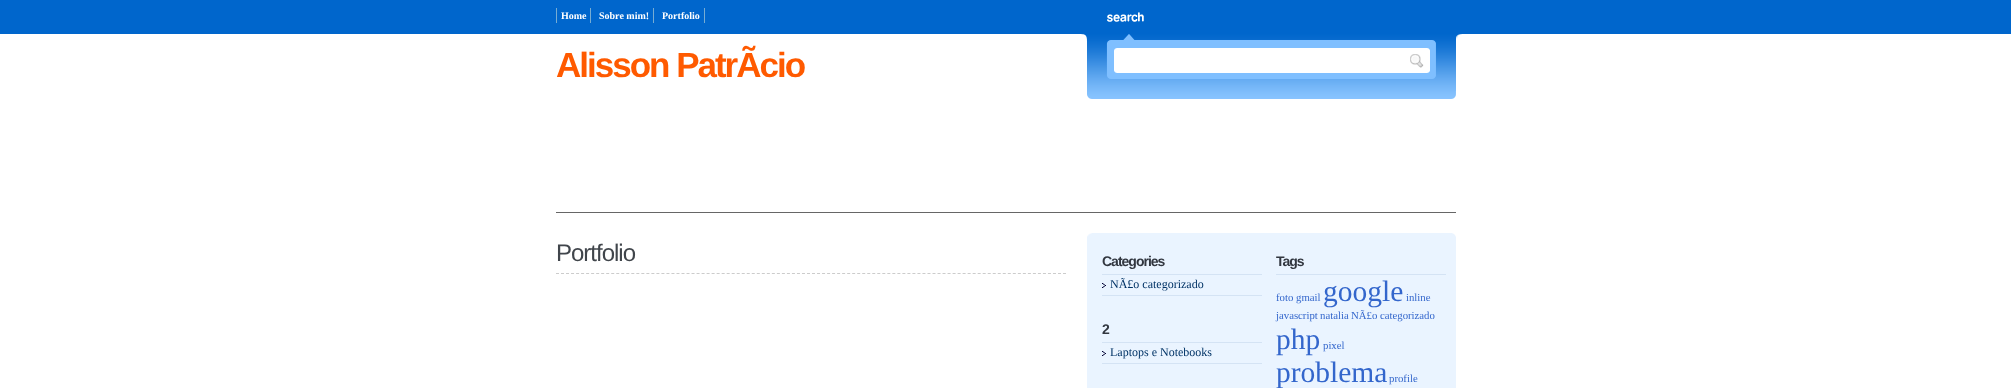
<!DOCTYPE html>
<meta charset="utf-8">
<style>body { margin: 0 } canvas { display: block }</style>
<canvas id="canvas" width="2011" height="388"></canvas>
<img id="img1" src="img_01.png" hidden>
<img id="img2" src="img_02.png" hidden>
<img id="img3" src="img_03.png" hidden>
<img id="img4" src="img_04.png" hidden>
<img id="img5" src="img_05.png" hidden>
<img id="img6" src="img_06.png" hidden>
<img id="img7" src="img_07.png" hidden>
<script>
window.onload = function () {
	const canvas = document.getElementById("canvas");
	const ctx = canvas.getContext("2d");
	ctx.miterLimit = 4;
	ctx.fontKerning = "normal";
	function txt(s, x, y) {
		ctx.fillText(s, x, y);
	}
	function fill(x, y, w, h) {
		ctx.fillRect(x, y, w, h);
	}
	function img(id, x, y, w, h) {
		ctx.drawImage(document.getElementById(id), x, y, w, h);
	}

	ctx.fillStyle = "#FFFFFF";
	fill(0, 0, 2011, 388);
	ctx.fillStyle = "#0066CC";
	fill(0, 0, 2011, 34);
	ctx.fillStyle = "#76ACD3";
	fill(556, 8, 1, 15);
	fill(590, 8, 1, 15);
	fill(653, 8, 1, 15);
	fill(704, 8, 1, 15);
	img("img1", 1081, 12, 375, 87);
	ctx.fillStyle = "#FFFFFF";
	fill(1117, 48, 293, 25);
	img("img2", 1114, 48, 3, 25);
	img("img3", 1410, 48, 20, 25);
	img("img4", 1456, 34, 6, 5);
	ctx.fillStyle = "#666666";
	fill(556, 212, 900, 1);
	ctx.beginPath();
	ctx.moveTo(556, 273.5);
	ctx.lineTo(1066, 273.5);
	ctx.strokeStyle = "#CCCCCC";
	ctx.setLineDash([3, 2.02]);
	ctx.stroke();
	ctx.fillStyle = "#EAF4FF";
	fill(1087, 233, 369, 155);
	img("img5", 1087, 233, 5, 4);
	ctx.fillStyle = "#D4E3F4";
	fill(1102, 274, 160, 1);
	img("img6", 1102, 283, 4, 5);
	fill(1102, 295, 160, 1);
	fill(1102, 342, 160, 1);
	img("img6", 1102, 351, 4, 5);
	fill(1102, 363, 160, 1);
	img("img7", 1452, 233, 4, 4);
	fill(1276, 274, 170, 1);
	ctx.font = "bold 10px Liberation Serif";
	ctx.fillStyle = "#FFFFFF";
	txt("Home", 561, 19);
	txt("Sobre mim!", 599, 19);
	txt("Portfolio", 662, 19);
	ctx.letterSpacing = "-2px";
	ctx.font = "bold 35px Liberation Sans";
	ctx.fillStyle = "#FF5A00";
	txt("Alisson PatrÃcio", 556, 77);
	ctx.letterSpacing = "-1px";
	ctx.font = "24px Liberation Sans";
	ctx.fillStyle = "#40454B";
	txt("Portfolio", 556, 261);
	ctx.font = "bold 14px Liberation Sans";
	ctx.fillStyle = "#323740";
	txt("Categories", 1102, 266);
	ctx.letterSpacing = "0px";
	ctx.font = "12px Liberation Serif";
	ctx.fillStyle = "#003366";
	txt("NÃ£o categorizado", 1110, 288);
	ctx.letterSpacing = "-1px";
	ctx.font = "bold 14px Liberation Sans";
	ctx.fillStyle = "#323740";
	txt("2", 1102, 334);
	ctx.letterSpacing = "0px";
	ctx.font = "12px Liberation Serif";
	ctx.fillStyle = "#003366";
	txt("Laptops e Notebooks", 1110, 356);
	ctx.letterSpacing = "-1px";
	ctx.font = "bold 14px Liberation Sans";
	ctx.fillStyle = "#323740";
	txt("Tags", 1276, 266);
	ctx.letterSpacing = "0px";
	ctx.font = "10.75px Liberation Serif";
	ctx.fillStyle = "#3366CC";
	txt("foto", 1276, 301);
	txt("gmail", 1296, 301);
	ctx.font = "29.5px Liberation Serif";
	txt("google", 1323, 301);
	ctx.font = "10.75px Liberation Serif";
	txt("inline", 1406, 301);
	txt("javascript", 1276, 319);
	txt("natalia", 1320, 319);
	txt("NÃ£o categorizado", 1351, 319);
	ctx.font = "29.5px Liberation Serif";
	txt("php", 1276, 349);
	ctx.font = "10.75px Liberation Serif";
	txt("pixel", 1323, 349);
	ctx.font = "29.5px Liberation Serif";
	txt("problema", 1276, 382);
	ctx.font = "10.75px Liberation Serif";
	txt("profile", 1389, 382);
};
</script>
